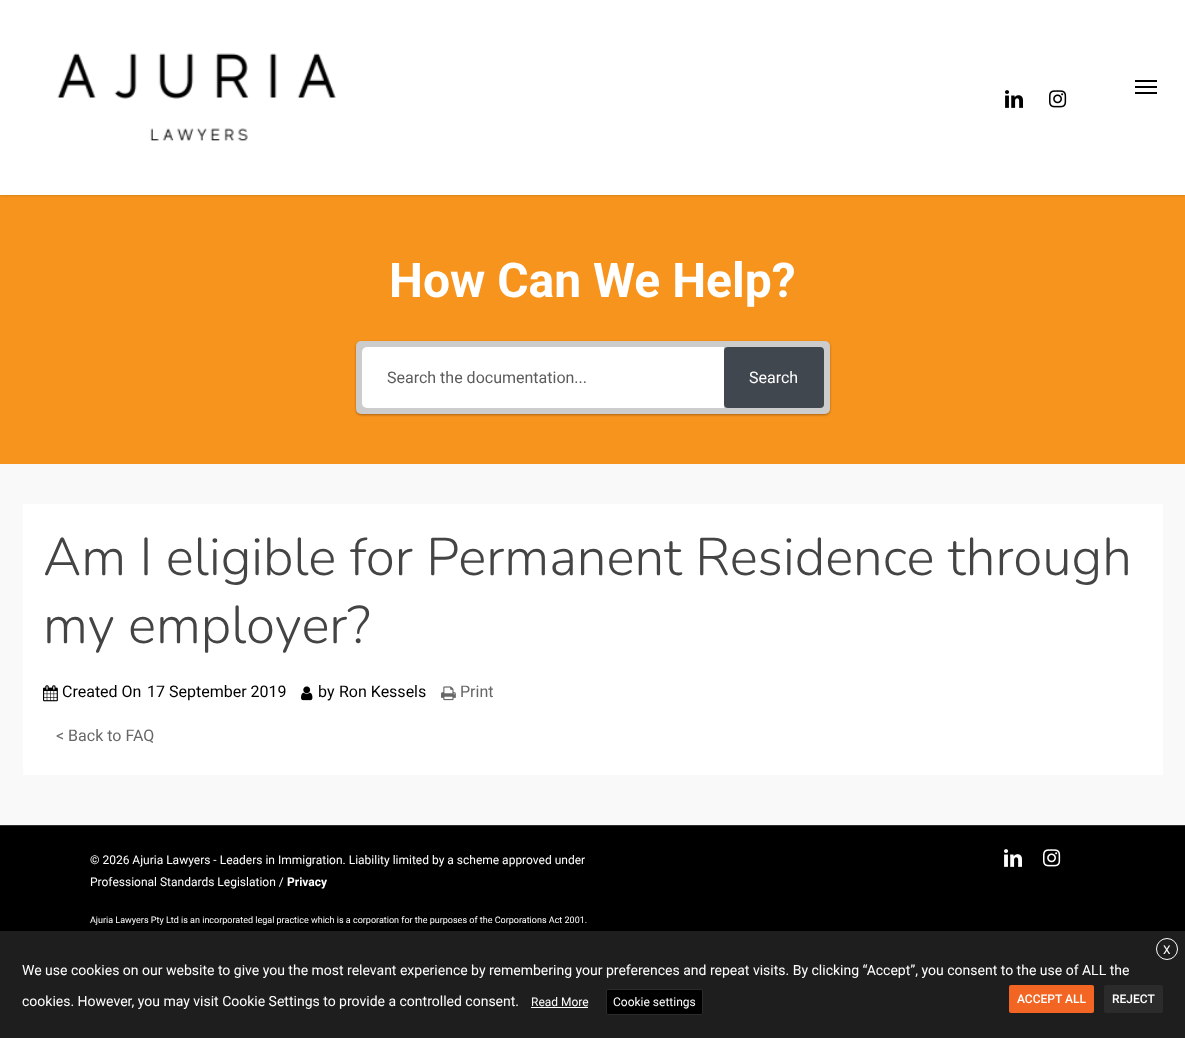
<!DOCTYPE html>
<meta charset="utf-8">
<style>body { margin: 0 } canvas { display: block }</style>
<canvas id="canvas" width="1185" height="1038"></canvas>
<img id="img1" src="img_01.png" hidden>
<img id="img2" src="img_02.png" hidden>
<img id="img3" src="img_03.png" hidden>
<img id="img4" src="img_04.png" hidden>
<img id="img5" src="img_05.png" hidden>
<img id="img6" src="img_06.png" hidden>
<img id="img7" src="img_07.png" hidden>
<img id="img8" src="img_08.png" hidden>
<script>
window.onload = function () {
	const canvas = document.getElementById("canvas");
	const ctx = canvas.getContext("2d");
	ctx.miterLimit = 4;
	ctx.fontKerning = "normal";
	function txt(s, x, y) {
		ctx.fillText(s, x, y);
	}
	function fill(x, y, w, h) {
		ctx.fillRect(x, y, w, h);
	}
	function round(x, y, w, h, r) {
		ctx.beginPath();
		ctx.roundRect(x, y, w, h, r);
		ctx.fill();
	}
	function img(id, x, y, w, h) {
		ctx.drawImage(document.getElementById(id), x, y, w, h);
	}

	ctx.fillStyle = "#F9F9F9";
	fill(0, 0, 1185, 1038);
	ctx.fillStyle = "#F7941D";
	fill(0, 195, 1185, 269);
	ctx.fillStyle = "rgba(0, 0, 0, 0.22)";
	ctx.filter = "blur(1.5px)";
	ctx.beginPath();
	ctx.rect(0, 0, 1185, 195);
	ctx.fill();
	ctx.filter = "none";
	ctx.fillStyle = "#FFFFFF";
	fill(0, 0, 1185, 195);
	img("img1", 57, 53, 279, 88);
	ctx.fillStyle = "#000000";
	fill(1135, 80, 22, 2);
	fill(1135, 92, 22, 2);
	fill(1135, 86, 22, 2);
	img("img2", 1005, 90, 18, 18);
	img("img3", 1049, 90, 18, 18);
	ctx.fillStyle = "rgba(0, 0, 0, 0.32)";
	ctx.filter = "blur(1px)";
	ctx.beginPath();
	ctx.roundRect(356, 342, 474, 73, 5);
	ctx.fill();
	ctx.filter = "none";
	ctx.fillStyle = "#CCCCCC";
	round(356, 341, 474, 73, 5);
	ctx.fillStyle = "#FFFFFF";
	ctx.beginPath();
	ctx.roundRect(362, 347, 362, 61, [5, 0, 0, 5]);
	ctx.fill();
	ctx.fillStyle = "#40474F";
	round(724, 347, 100, 61, 4);
	ctx.fillStyle = "#FFFFFF";
	fill(23, 504, 1140, 271);
	img("img4", 43, 685, 15, 17);
	img("img5", 301, 686, 12, 15);
	img("img6", 441, 686, 15, 15);
	ctx.fillStyle = "#000000";
	fill(0, 826, 1185, 105);
	ctx.fillStyle = "#2E2E2E";
	fill(0, 825, 1185, 1);
	img("img7", 1004, 849, 18, 18);
	img("img8", 1043, 849, 18, 18);
	ctx.fillStyle = "rgba(0, 0, 0, 0.5)";
	ctx.filter = "blur(5px)";
	ctx.beginPath();
	ctx.rect(0, 936, 1185, 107);
	ctx.fill();
	ctx.filter = "none";
	ctx.fillStyle = "#1E1E1E";
	fill(0, 931, 1185, 107);
	ctx.beginPath();
	ctx.arc(1167, 949, 10.5, 0, Math.PI * 2);
	ctx.strokeStyle = "#FFFFFF";
	ctx.stroke();
	ctx.fillStyle = "#FFFFFF";
	fill(531, 1007, 57, 1);
	ctx.fillStyle = "#000000";
	ctx.beginPath();
	ctx.roundRect(606.5, 989.5, 96, 25, 1.5);
	ctx.fill();
	ctx.strokeStyle = "#2C2B2B";
	ctx.stroke();
	ctx.fillStyle = "#F26522";
	round(1009, 985, 85, 28, 2);
	ctx.fillStyle = "#2C2B2B";
	round(1104, 985, 59, 28, 2);
	ctx.font = "bold 48px Roboto";
	ctx.fillStyle = "#FFFFFF";
	txt("How Can We Help?", 389, 297);
	ctx.font = "16px Roboto";
	ctx.fillStyle = "#5C5C5C";
	txt("Search the documentation...", 387, 383);
	ctx.fillStyle = "#FFFFFF";
	txt("Search", 749, 383);
	ctx.font = "300 53px Nunito";
	ctx.fillStyle = "#444444";
	txt("Am I eligible for Permanent Residence through", 43, 575);
	txt("my employer?", 43, 643);
	ctx.font = "16px Roboto";
	ctx.fillStyle = "#000000";
	txt("Created On", 62, 697);
	txt("17 September 2019", 147, 697);
	txt("by", 318, 697);
	txt("Ron Kessels", 339, 697);
	ctx.fillStyle = "#676767";
	txt("Print", 460, 697);
	txt("< Back to FAQ", 56, 741);
	ctx.font = "12px Roboto";
	ctx.fillStyle = "#FFFFFF";
	txt("© 2026 Ajuria Lawyers - Leaders in Immigration. Liability limited by a scheme approved under", 90, 864);
	txt("Professional Standards Legislation /", 90, 886);
	ctx.font = "bold 12px Roboto";
	txt("Privacy", 287, 886);
	ctx.font = "9px Roboto";
	txt("Ajuria Lawyers Pty Ltd is an incorporated legal practice which is a corporation for the purposes of the Corporations Act 2001.", 90, 923);
	ctx.font = "12px Roboto";
	txt("X", 1163, 954);
	ctx.font = "14px Roboto";
	txt("We use cookies on our website to give you the most relevant experience by remembering your preferences and repeat visits. By clicking “Accept”, you consent to the use of ALL the", 22, 975);
	txt("cookies. However, you may visit Cookie Settings to provide a controlled consent.", 22, 1006);
	ctx.font = "12px Roboto";
	txt("Read More", 531, 1006);
	txt("Cookie settings", 613, 1006);
	ctx.font = "500 12px Roboto";
	txt("ACCEPT ALL", 1017, 1003);
	txt("REJECT", 1112, 1003);
};
</script>
